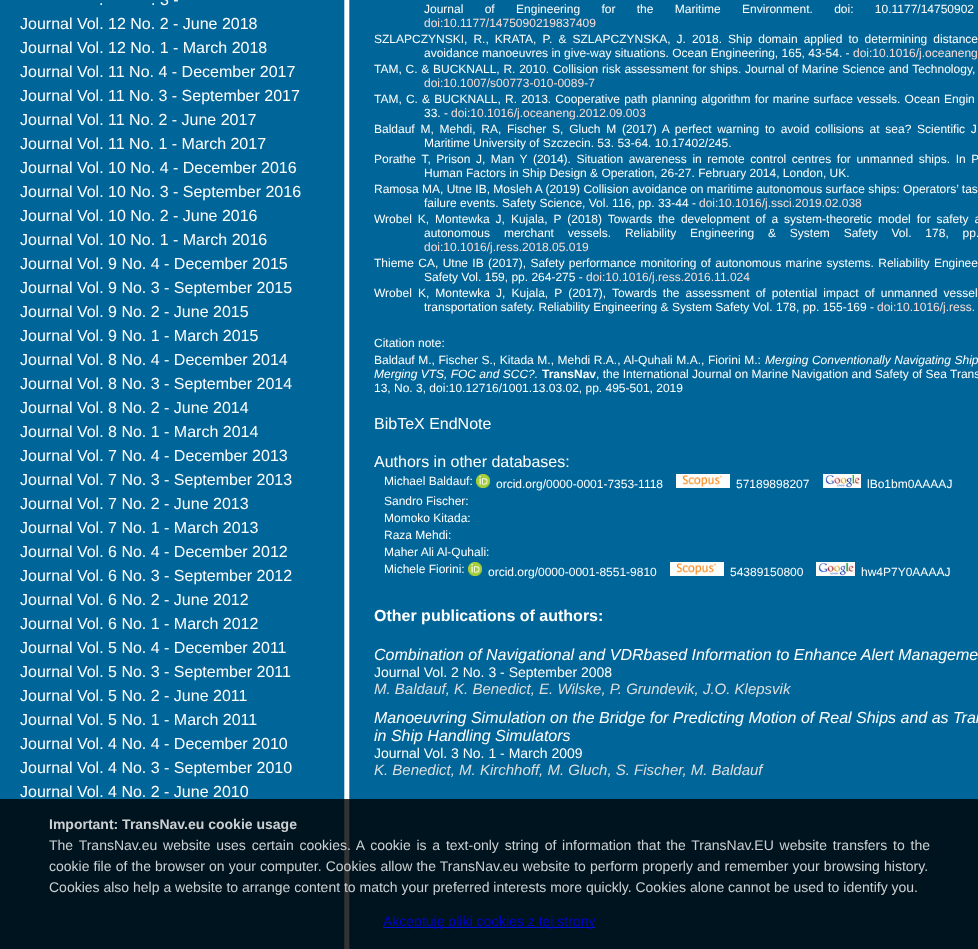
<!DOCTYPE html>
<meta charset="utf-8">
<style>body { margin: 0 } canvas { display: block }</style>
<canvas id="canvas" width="978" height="949"></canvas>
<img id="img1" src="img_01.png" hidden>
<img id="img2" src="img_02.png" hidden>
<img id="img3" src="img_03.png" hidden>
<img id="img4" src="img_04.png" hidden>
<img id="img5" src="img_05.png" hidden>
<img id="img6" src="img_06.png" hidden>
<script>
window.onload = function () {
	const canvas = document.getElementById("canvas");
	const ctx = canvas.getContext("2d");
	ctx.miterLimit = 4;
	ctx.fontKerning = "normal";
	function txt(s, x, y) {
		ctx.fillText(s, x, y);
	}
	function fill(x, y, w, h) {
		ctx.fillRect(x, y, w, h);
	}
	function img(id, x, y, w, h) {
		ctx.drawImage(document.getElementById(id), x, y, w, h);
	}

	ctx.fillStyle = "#006699";
	fill(0, 0, 978, 949);
	ctx.fillStyle = "#006195";
	fill(343, 0, 1, 949);
	img("img1", 344, 0, 7, 949);
	img("img2", 476, 474, 14, 14);
	img("img3", 676, 474, 54, 14);
	img("img4", 823, 474, 38, 14);
	img("img2", 468, 562, 14, 14);
	img("img5", 670, 562, 54, 14);
	img("img6", 816, 562, 39, 14);
	ctx.fillStyle = "rgba(0, 0, 0, 0.8)";
	fill(0, 799, 978, 150);
	ctx.fillStyle = "#0014DD";
	fill(383, 927, 212, 1);
	ctx.font = "16px Liberation Sans";
	ctx.fillStyle = "#FFFFFF";
	txt(".", 99, 5);
	txt(". 3 -", 151, 5);
	txt("Journal Vol. 12 No. 2 - June 2018", 20, 29);
	txt("Journal Vol. 12 No. 1 - March 2018", 20, 53);
	txt("Journal Vol. 11 No. 4 - December 2017", 20, 77);
	txt("Journal Vol. 11 No. 3 - September 2017", 20, 101);
	txt("Journal Vol. 11 No. 2 - June 2017", 20, 125);
	txt("Journal Vol. 11 No. 1 - March 2017", 20, 149);
	txt("Journal Vol. 10 No. 4 - December 2016", 20, 173);
	txt("Journal Vol. 10 No. 3 - September 2016", 20, 197);
	txt("Journal Vol. 10 No. 2 - June 2016", 20, 221);
	txt("Journal Vol. 10 No. 1 - March 2016", 20, 245);
	txt("Journal Vol. 9 No. 4 - December 2015", 20, 269);
	txt("Journal Vol. 9 No. 3 - September 2015", 20, 293);
	txt("Journal Vol. 9 No. 2 - June 2015", 20, 317);
	txt("Journal Vol. 9 No. 1 - March 2015", 20, 341);
	txt("Journal Vol. 8 No. 4 - December 2014", 20, 365);
	txt("Journal Vol. 8 No. 3 - September 2014", 20, 389);
	txt("Journal Vol. 8 No. 2 - June 2014", 20, 413);
	txt("Journal Vol. 8 No. 1 - March 2014", 20, 437);
	txt("Journal Vol. 7 No. 4 - December 2013", 20, 461);
	txt("Journal Vol. 7 No. 3 - September 2013", 20, 485);
	txt("Journal Vol. 7 No. 2 - June 2013", 20, 509);
	txt("Journal Vol. 7 No. 1 - March 2013", 20, 533);
	txt("Journal Vol. 6 No. 4 - December 2012", 20, 557);
	txt("Journal Vol. 6 No. 3 - September 2012", 20, 581);
	txt("Journal Vol. 6 No. 2 - June 2012", 20, 605);
	txt("Journal Vol. 6 No. 1 - March 2012", 20, 629);
	txt("Journal Vol. 5 No. 4 - December 2011", 20, 653);
	txt("Journal Vol. 5 No. 3 - September 2011", 20, 677);
	txt("Journal Vol. 5 No. 2 - June 2011", 20, 701);
	txt("Journal Vol. 5 No. 1 - March 2011", 20, 725);
	txt("Journal Vol. 4 No. 4 - December 2010", 20, 749);
	txt("Journal Vol. 4 No. 3 - September 2010", 20, 773);
	txt("Journal Vol. 4 No. 2 - June 2010", 20, 797);
	ctx.wordSpacing = "18px";
	ctx.font = "12px Liberation Sans";
	txt("Journal of Engineering for the Maritime Environment. doi: 10.1177/14750902", 424, 13);
	ctx.wordSpacing = "0px";
	ctx.fillStyle = "#F8DCD9";
	txt("doi:10.1177/1475090219837409", 424, 27);
	ctx.wordSpacing = "2.75px";
	ctx.fillStyle = "#FFFFFF";
	txt("SZLAPCZYNSKI, R., KRATA, P. & SZLAPCZYNSKA, J. 2018. Ship domain applied to determining distance", 374, 43);
	ctx.wordSpacing = "0px";
	txt("avoidance manoeuvres in give-way situations. Ocean Engineering, 165, 43-54. -", 424, 57);
	ctx.fillStyle = "#F8DCD9";
	txt("doi:10.1016/j.oceaneng", 853, 57);
	ctx.wordSpacing = "0.4px";
	ctx.fillStyle = "#FFFFFF";
	txt("TAM, C. & BUCKNALL, R. 2010. Collision risk assessment for ships. Journal of Marine Science and Technology,", 374, 73);
	ctx.wordSpacing = "0px";
	ctx.fillStyle = "#F8DCD9";
	txt("doi:10.1007/s00773-010-0089-7", 424, 87);
	ctx.wordSpacing = "0.8px";
	ctx.fillStyle = "#FFFFFF";
	txt("TAM, C. & BUCKNALL, R. 2013. Cooperative path planning algorithm for marine surface vessels. Ocean Engin", 374, 103);
	ctx.wordSpacing = "0px";
	txt("33. -", 424, 117);
	ctx.fillStyle = "#F8DCD9";
	txt("doi:10.1016/j.oceaneng.2012.09.003", 451, 117);
	ctx.wordSpacing = "2.4px";
	ctx.fillStyle = "#FFFFFF";
	txt("Baldauf M, Mehdi, RA, Fischer S, Gluch M (2017) A perfect warning to avoid collisions at sea? Scientific J", 374, 133);
	ctx.wordSpacing = "0px";
	txt("Maritime University of Szczecin. 53. 53-64. 10.17402/245.", 424, 147);
	ctx.wordSpacing = "2.25px";
	txt("Porathe T, Prison J, Man Y (2014). Situation awareness in remote control centres for unmanned ships. In P", 374, 163);
	ctx.wordSpacing = "0px";
	txt("Human Factors in Ship Design & Operation, 26-27. February 2014, London, UK.", 424, 177);
	txt("Ramosa MA, Utne IB, Mosleh A (2019) Collision avoidance on maritime autonomous surface ships: Operators’ tas", 374, 193);
	txt("failure events. Safety Science, Vol. 116, pp. 33-44 -", 424, 207);
	ctx.fillStyle = "#F8DCD9";
	txt("doi:10.1016/j.ssci.2019.02.038", 699, 207);
	ctx.wordSpacing = "2.6px";
	ctx.fillStyle = "#FFFFFF";
	txt("Wrobel K, Montewka J, Kujala, P (2018) Towards the development of a system-theoretic model for safety a", 374, 223);
	ctx.wordSpacing = "10.5px";
	txt("autonomous merchant vessels. Reliability Engineering & System Safety Vol. 178, pp.", 424, 237);
	ctx.wordSpacing = "0px";
	ctx.fillStyle = "#F8DCD9";
	txt("doi:10.1016/j.ress.2018.05.019", 424, 251);
	ctx.wordSpacing = "1px";
	ctx.fillStyle = "#FFFFFF";
	txt("Thieme CA, Utne IB (2017), Safety performance monitoring of autonomous marine systems. Reliability Enginee", 374, 267);
	ctx.wordSpacing = "0px";
	txt("Safety Vol. 159, pp. 264-275 -", 424, 281);
	ctx.fillStyle = "#F8DCD9";
	txt("doi:10.1016/j.ress.2016.11.024", 586, 281);
	ctx.wordSpacing = "2.75px";
	ctx.fillStyle = "#FFFFFF";
	txt("Wrobel K, Montewka J, Kujala, P (2017), Towards the assessment of potential impact of unmanned vessel", 374, 297);
	ctx.wordSpacing = "0px";
	txt("transportation safety. Reliability Engineering & System Safety Vol. 178, pp. 155-169 -", 424, 311);
	ctx.fillStyle = "#F8DCD9";
	txt("doi:10.1016/j.ress.", 877, 311);
	ctx.fillStyle = "#FFFFFF";
	txt("Citation note:", 374, 347);
	ctx.wordSpacing = "0.25px";
	txt("Baldauf M., Fischer S., Kitada M., Mehdi R.A., Al-Quhali M.A., Fiorini M.:", 374, 364);
	ctx.font = "italic 12px Liberation Sans";
	txt("Merging Conventionally Navigating Ship", 765, 364);
	ctx.wordSpacing = "0px";
	txt("Merging VTS, FOC and SCC?.", 374, 378);
	ctx.font = "bold 12px Liberation Sans";
	txt("TransNav", 542, 378);
	ctx.font = "12px Liberation Sans";
	txt(", the International Journal on Marine Navigation and Safety of Sea Trans", 596, 378);
	txt("13, No. 3, doi:10.12716/1001.13.03.02, pp. 495-501, 2019", 374, 392);
	ctx.font = "16px Liberation Sans";
	txt("BibTeX EndNote", 374, 429);
	txt("Authors in other databases:", 374, 467);
	ctx.font = "12px Liberation Sans";
	txt("Michael Baldauf:", 384, 485);
	txt("orcid.org/0000-0001-7353-1118", 496, 488);
	txt("57189898207", 736, 488);
	txt("lBo1bm0AAAAJ", 867, 488);
	txt("Sandro Fischer:", 384, 505);
	txt("Momoko Kitada:", 384, 522);
	txt("Raza Mehdi:", 384, 539);
	txt("Maher Ali Al-Quhali:", 384, 556);
	txt("Michele Fiorini:", 384, 573);
	txt("orcid.org/0000-0001-8551-9810", 488, 576);
	txt("54389150800", 730, 576);
	txt("hw4P7Y0AAAAJ", 861, 576);
	ctx.font = "bold 16px Liberation Sans";
	txt("Other publications of authors:", 374, 621);
	ctx.font = "italic 16px Liberation Sans";
	txt("Combination of Navigational and VDRbased Information to Enhance Alert Manageme", 374, 660);
	ctx.font = "14px Liberation Sans";
	txt("Journal Vol. 2 No. 3 - September 2008", 374, 677);
	ctx.font = "italic 15px Liberation Sans";
	ctx.fillStyle = "#DFDFDF";
	txt("M. Baldauf, K. Benedict, E. Wilske, P. Grundevik, J.O. Klepsvik", 374, 694);
	ctx.font = "italic 16px Liberation Sans";
	ctx.fillStyle = "#FFFFFF";
	txt("Manoeuvring Simulation on the Bridge for Predicting Motion of Real Ships and as Trai", 374, 723);
	txt("in Ship Handling Simulators", 374, 741);
	ctx.font = "14px Liberation Sans";
	txt("Journal Vol. 3 No. 1 - March 2009", 374, 758);
	ctx.font = "italic 15px Liberation Sans";
	ctx.fillStyle = "#DFDFDF";
	txt("K. Benedict, M. Kirchhoff, M. Gluch, S. Fischer, M. Baldauf", 374, 775);
	ctx.font = "bold 14px Liberation Sans";
	ctx.fillStyle = "#CCD0D2";
	txt("Important: TransNav.eu cookie usage", 49, 829);
	ctx.wordSpacing = "1.9px";
	ctx.font = "14px Liberation Sans";
	txt("The TransNav.eu website uses certain cookies. A cookie is a text-only string of information that the TransNav.EU website transfers to the", 49, 850);
	ctx.wordSpacing = "0.25px";
	txt("cookie file of the browser on your computer. Cookies allow the TransNav.eu website to perform properly and remember your browsing history.", 49, 871);
	ctx.wordSpacing = "0px";
	txt("Cookies also help a website to arrange content to match your preferred interests more quickly. Cookies alone cannot be used to identify you.", 49, 892);
	ctx.fillStyle = "#0104C5";
	txt("Akceptuję pliki cookies z tej strony", 383, 926);
};
</script>
